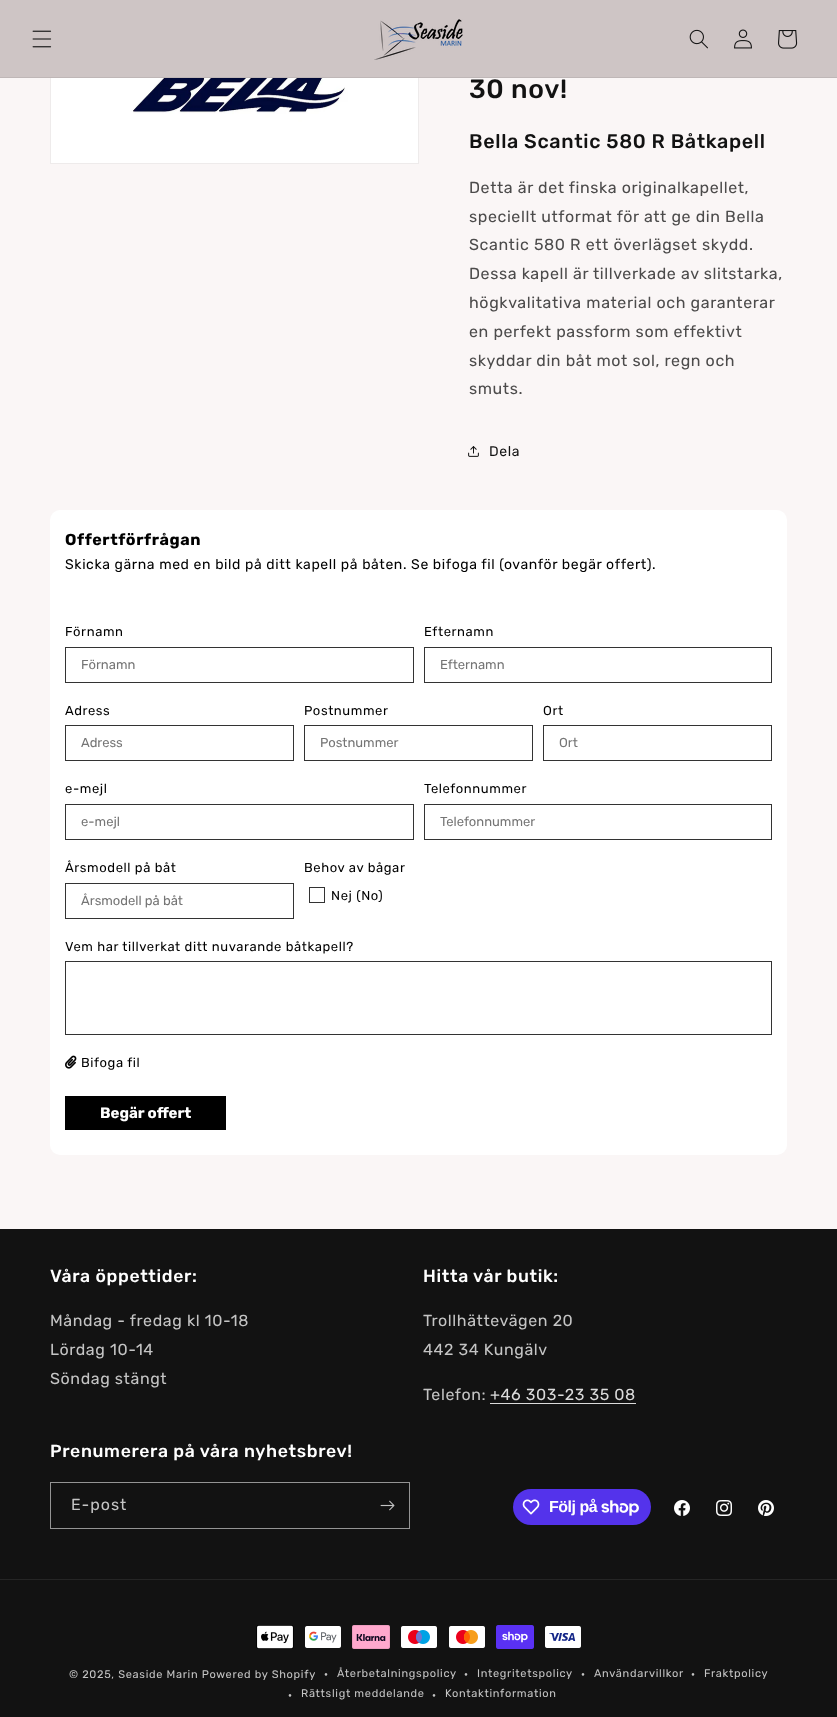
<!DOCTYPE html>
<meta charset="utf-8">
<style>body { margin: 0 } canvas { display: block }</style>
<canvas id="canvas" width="837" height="1717"></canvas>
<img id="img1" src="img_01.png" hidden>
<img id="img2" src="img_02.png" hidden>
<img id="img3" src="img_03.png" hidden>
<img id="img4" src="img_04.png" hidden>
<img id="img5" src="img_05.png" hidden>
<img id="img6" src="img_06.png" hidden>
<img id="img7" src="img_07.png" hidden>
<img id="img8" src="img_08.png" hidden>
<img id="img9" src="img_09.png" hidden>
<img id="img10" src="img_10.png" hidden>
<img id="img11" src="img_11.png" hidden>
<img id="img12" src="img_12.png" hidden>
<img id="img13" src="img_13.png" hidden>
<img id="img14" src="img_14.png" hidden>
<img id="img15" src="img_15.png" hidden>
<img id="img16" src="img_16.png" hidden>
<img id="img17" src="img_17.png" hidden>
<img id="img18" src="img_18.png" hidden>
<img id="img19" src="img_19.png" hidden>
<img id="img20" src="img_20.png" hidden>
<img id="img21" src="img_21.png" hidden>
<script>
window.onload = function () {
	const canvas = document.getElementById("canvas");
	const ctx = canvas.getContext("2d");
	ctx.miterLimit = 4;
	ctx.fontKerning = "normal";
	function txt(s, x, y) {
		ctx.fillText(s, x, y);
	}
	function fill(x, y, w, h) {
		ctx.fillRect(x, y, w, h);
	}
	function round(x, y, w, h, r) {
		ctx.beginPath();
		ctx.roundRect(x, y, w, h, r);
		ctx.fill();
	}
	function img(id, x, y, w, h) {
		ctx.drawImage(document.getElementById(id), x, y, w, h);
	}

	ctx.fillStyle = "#FAF6F6";
	fill(0, 0, 837, 1717);
	ctx.strokeStyle = "#EEEBEB";
	ctx.strokeRect(50.5, 30.5, 368, 133);
	ctx.fillStyle = "#CEC5C5";
	fill(0, 0, 837, 77);
	ctx.fillStyle = "#BFB7B7";
	fill(0, 77, 837, 1);
	img("img1", 32, 30, 20, 18);
	img("img2", 374, 19, 89, 41);
	img("img3", 689, 29, 19, 20);
	img("img4", 734, 29, 18, 20);
	img("img5", 778, 30, 20, 19);
	img("img6", 51, 78, 367, 85);
	img("img7", 468, 446, 11, 11);
	ctx.fillStyle = "#FFFFFF";
	round(50, 510, 737, 645, 10);
	ctx.strokeStyle = "#333333";
	ctx.strokeRect(65.5, 647.5, 348, 35);
	ctx.strokeRect(424.5, 647.5, 347, 35);
	ctx.strokeRect(65.5, 725.5, 228, 35);
	ctx.strokeRect(304.5, 725.5, 228, 35);
	ctx.strokeRect(543.5, 725.5, 228, 35);
	ctx.strokeRect(65.5, 804.5, 348, 35);
	ctx.strokeRect(424.5, 804.5, 347, 35);
	ctx.strokeRect(65.5, 883.5, 228, 35);
	ctx.strokeRect(309.5, 887.5, 15, 15);
	ctx.strokeRect(65.5, 961.5, 706, 73);
	img("img8", 65, 1055, 12, 14);
	ctx.fillStyle = "#000000";
	fill(65, 1096, 161, 34);
	ctx.fillStyle = "#121212";
	fill(0, 1229, 837, 488);
	ctx.fillStyle = "#DBDBDB";
	fill(490, 1403, 146, 1);
	ctx.strokeStyle = "#949494";
	ctx.strokeRect(50.5, 1482.5, 359, 46);
	img("img9", 380, 1500, 15, 11);
	ctx.fillStyle = "#5433EB";
	round(513, 1489, 138, 36, 18);
	img("img10", 522, 1499, 18, 16);
	img("img11", 601, 1500, 38, 16);
	img("img12", 674, 1500, 16, 16);
	img("img13", 716, 1500, 16, 16);
	img("img14", 758, 1500, 16, 16);
	ctx.fillStyle = "#252525";
	fill(0, 1579, 837, 1);
	img("img15", 256, 1625, 38, 24);
	img("img16", 305, 1626, 36, 22);
	img("img17", 352, 1625, 38, 24);
	img("img18", 401, 1626, 36, 22);
	img("img19", 449, 1626, 36, 22);
	img("img20", 496, 1625, 38, 24);
	img("img21", 545, 1626, 36, 22);
	ctx.letterSpacing = "0.65px";
	ctx.font = "500 26.5px Rubik";
	ctx.fillStyle = "#121212";
	txt("30 nov!", 469, 98);
	ctx.font = "500 19.75px Rubik";
	txt("Bella Scantic 580 R Båtkapell", 469, 148);
	ctx.letterSpacing = "0.6px";
	ctx.font = "16px Rubik";
	ctx.fillStyle = "#4C4B4B";
	txt("Detta är det finska originalkapellet,", 469, 193);
	txt("speciellt utformat för att ge din Bella", 469, 222);
	txt("Scantic 580 R ett överlägset skydd.", 469, 250);
	txt("Dessa kapell är tillverkade av slitstarka,", 469, 279);
	txt("högkvalitativa material och garanterar", 469, 308);
	txt("en perfekt passform som effektivt", 469, 337);
	txt("skyddar din båt mot sol, regn och", 469, 366);
	txt("smuts.", 469, 394);
	ctx.font = "14px Rubik";
	ctx.fillStyle = "#121212";
	txt("Dela", 489, 456);
	ctx.font = "bold 16px Rubik";
	ctx.fillStyle = "#000000";
	txt("Offertförfrågan", 65, 545);
	ctx.font = "14px Rubik";
	txt("Skicka gärna med en bild på ditt kapell på båten. Se bifoga fil (ovanför begär offert).", 65, 569);
	ctx.font = "13px Rubik";
	txt("Förnamn", 65, 636);
	ctx.letterSpacing = "0px";
	ctx.fillStyle = "#757575";
	txt("Förnamn", 81, 669);
	ctx.letterSpacing = "0.6px";
	ctx.fillStyle = "#000000";
	txt("Efternamn", 424, 636);
	ctx.letterSpacing = "0px";
	ctx.fillStyle = "#757575";
	txt("Efternamn", 440, 669);
	ctx.letterSpacing = "0.6px";
	ctx.fillStyle = "#000000";
	txt("Adress", 65, 715);
	ctx.letterSpacing = "0px";
	ctx.fillStyle = "#757575";
	txt("Adress", 81, 747);
	ctx.letterSpacing = "0.6px";
	ctx.fillStyle = "#000000";
	txt("Postnummer", 304, 715);
	ctx.letterSpacing = "0px";
	ctx.fillStyle = "#757575";
	txt("Postnummer", 320, 747);
	ctx.letterSpacing = "0.6px";
	ctx.fillStyle = "#000000";
	txt("Ort", 543, 715);
	ctx.letterSpacing = "0px";
	ctx.fillStyle = "#757575";
	txt("Ort", 559, 747);
	ctx.letterSpacing = "0.6px";
	ctx.fillStyle = "#000000";
	txt("e-mejl", 65, 793);
	ctx.letterSpacing = "0px";
	ctx.fillStyle = "#757575";
	txt("e-mejl", 81, 826);
	ctx.letterSpacing = "0.6px";
	ctx.fillStyle = "#000000";
	txt("Telefonnummer", 424, 793);
	ctx.letterSpacing = "0px";
	ctx.fillStyle = "#757575";
	txt("Telefonnummer", 440, 826);
	ctx.letterSpacing = "0.6px";
	ctx.fillStyle = "#000000";
	txt("Årsmodell på båt", 65, 872);
	ctx.letterSpacing = "0px";
	ctx.fillStyle = "#757575";
	txt("Årsmodell på båt", 81, 905);
	ctx.letterSpacing = "0.6px";
	ctx.fillStyle = "#000000";
	txt("Behov av bågar", 304, 872);
	txt("Nej (No)", 331, 900);
	txt("Vem har tillverkat ditt nuvarande båtkapell?", 65, 951);
	txt("Bifoga fil", 81, 1067);
	ctx.letterSpacing = "0px";
	ctx.font = "bold 15px Rubik";
	ctx.fillStyle = "#FFFFFF";
	txt("Begär offert", 100, 1118);
	ctx.letterSpacing = "0.65px";
	ctx.font = "500 17.6px Rubik";
	txt("Våra öppettider:", 50, 1282);
	ctx.letterSpacing = "0.6px";
	ctx.font = "16px Rubik";
	ctx.fillStyle = "#C4C4C4";
	txt("Måndag - fredag kl 10-18", 50, 1326);
	txt("Lördag 10-14", 50, 1355);
	txt("Söndag stängt", 50, 1384);
	ctx.letterSpacing = "0.65px";
	ctx.font = "500 17.6px Rubik";
	ctx.fillStyle = "#FFFFFF";
	txt("Hitta vår butik:", 423, 1282);
	ctx.letterSpacing = "0.6px";
	ctx.font = "16px Rubik";
	ctx.fillStyle = "#C4C4C4";
	txt("Trollhättevägen 20", 423, 1326);
	txt("442 34 Kungälv", 423, 1355);
	txt("Telefon:", 423, 1400);
	ctx.fillStyle = "#DBDBDB";
	txt("+46 303-23 35 08", 490, 1400);
	ctx.letterSpacing = "0.65px";
	ctx.font = "500 17.6px Rubik";
	ctx.fillStyle = "#FFFFFF";
	txt("Prenumerera på våra nyhetsbrev!", 50, 1457);
	ctx.letterSpacing = "1px";
	ctx.font = "16px Rubik";
	ctx.fillStyle = "#C4C4C4";
	txt("E-post", 71, 1510);
	ctx.letterSpacing = "-0.5px";
	ctx.font = "bold 16px Liberation Sans";
	ctx.fillStyle = "#FFFFFF";
	txt("Följ på", 549, 1512);
	ctx.letterSpacing = "0.7px";
	ctx.font = "11px Rubik";
	ctx.fillStyle = "#C4C4C4";
	txt("© 2025, Seaside Marin Powered by Shopify", 69, 1678);
	ctx.font = "12px Rubik";
	txt("·", 324, 1678);
	ctx.font = "11px Rubik";
	txt("Återbetalningspolicy", 337, 1677);
	ctx.font = "12px Rubik";
	txt("·", 464, 1678);
	ctx.font = "11px Rubik";
	txt("Integritetspolicy", 477, 1677);
	ctx.font = "12px Rubik";
	txt("·", 581, 1678);
	ctx.font = "11px Rubik";
	txt("Användarvillkor", 594, 1677);
	ctx.font = "12px Rubik";
	txt("·", 691, 1678);
	ctx.font = "11px Rubik";
	txt("Fraktpolicy", 704, 1677);
	ctx.font = "12px Rubik";
	txt("·", 288, 1699);
	ctx.font = "11px Rubik";
	txt("Rättsligt meddelande", 301, 1697);
	ctx.font = "12px Rubik";
	txt("·", 432, 1699);
	ctx.font = "11px Rubik";
	txt("Kontaktinformation", 445, 1697);
};
</script>
